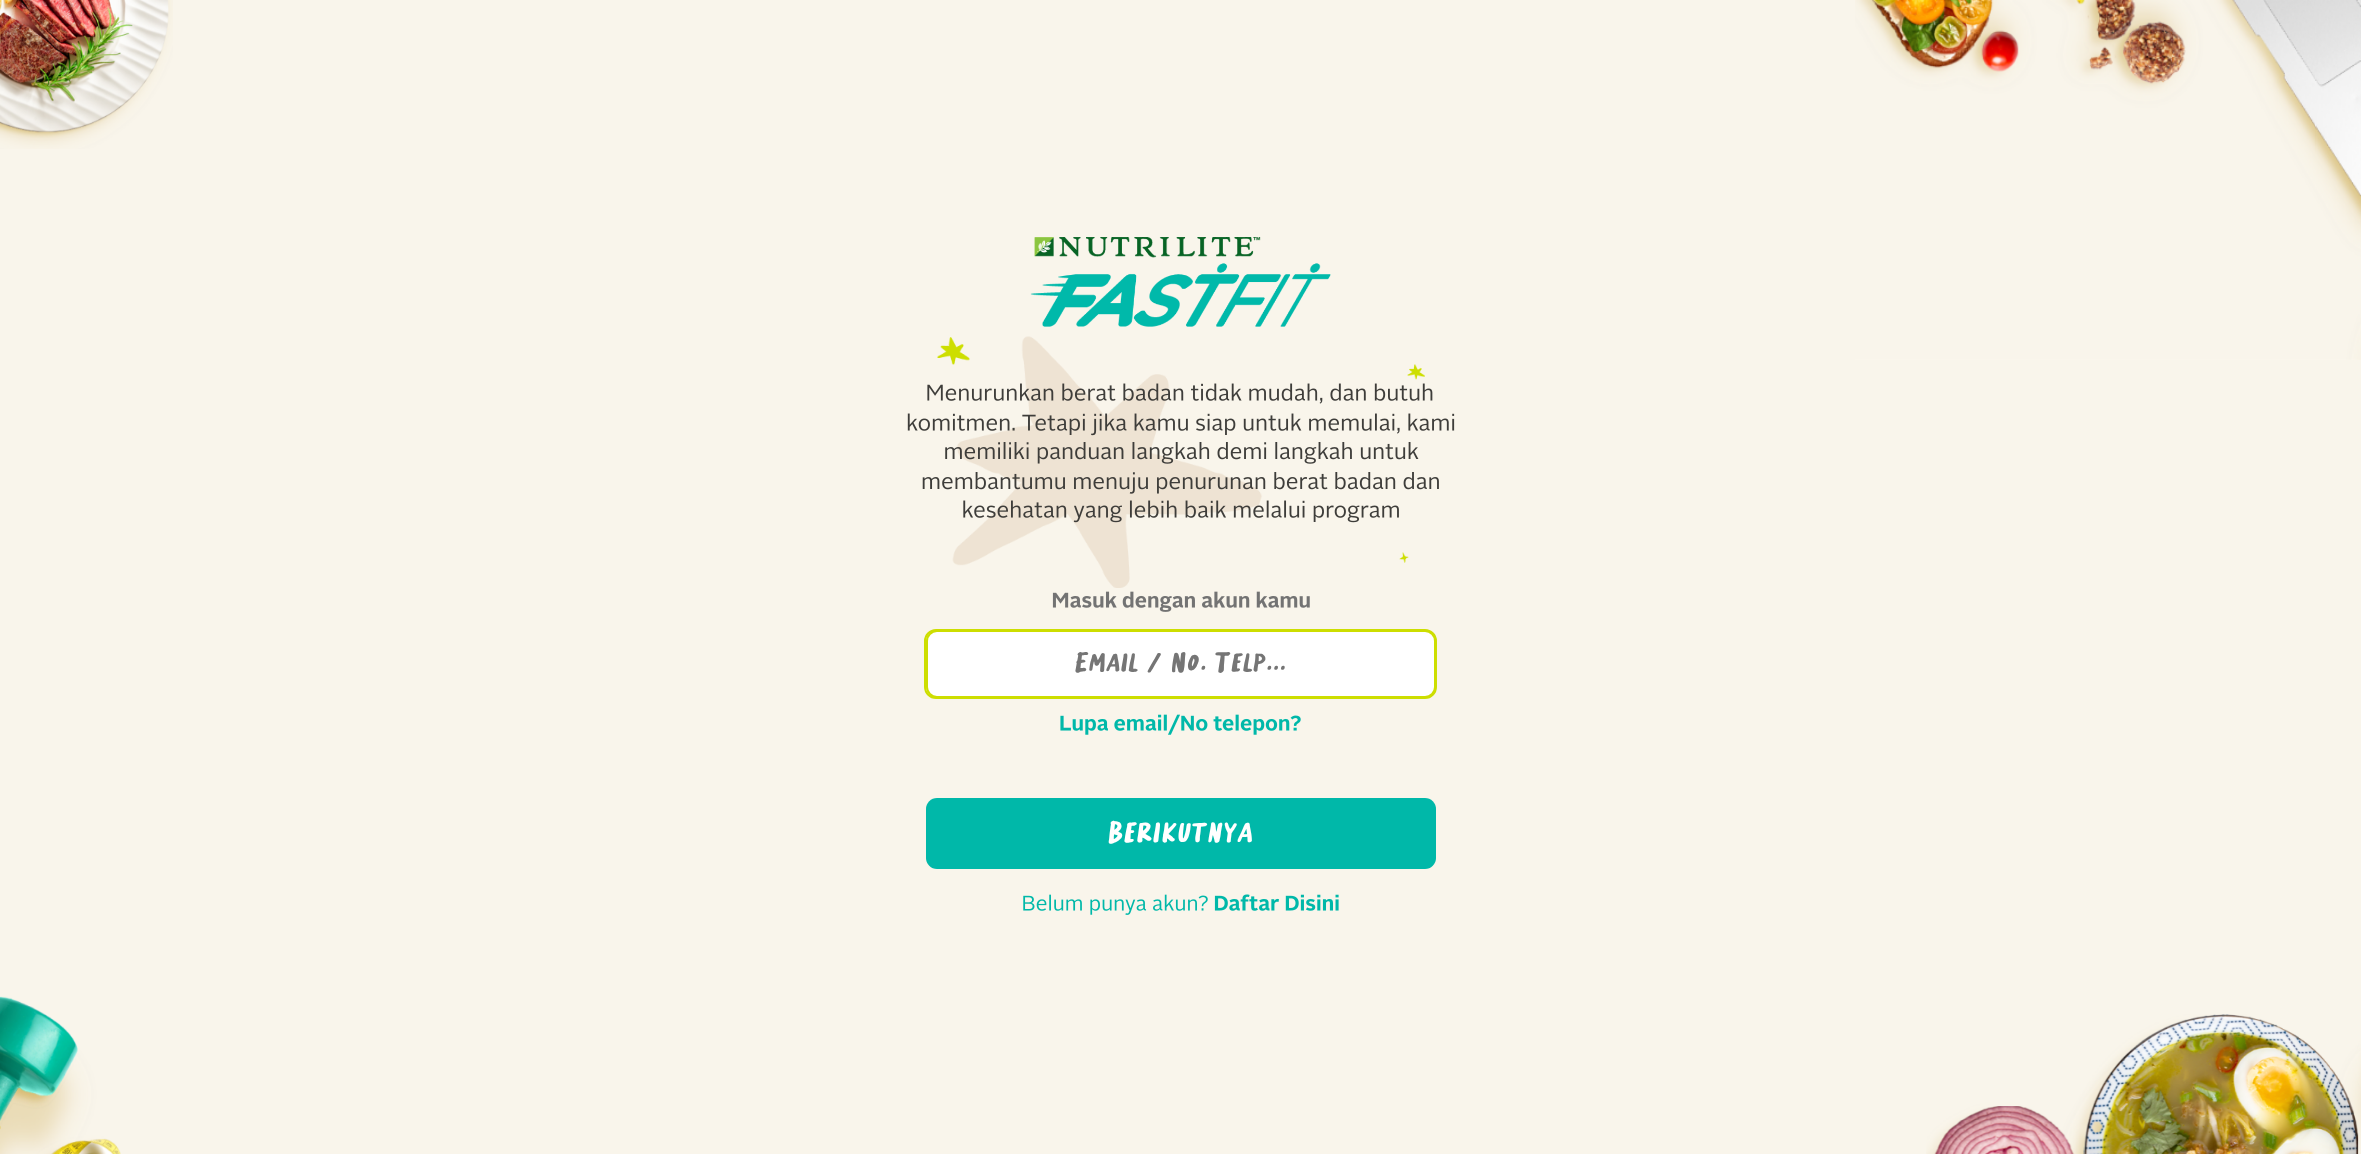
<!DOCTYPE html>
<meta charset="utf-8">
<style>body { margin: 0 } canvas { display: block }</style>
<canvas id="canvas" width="2361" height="1154"></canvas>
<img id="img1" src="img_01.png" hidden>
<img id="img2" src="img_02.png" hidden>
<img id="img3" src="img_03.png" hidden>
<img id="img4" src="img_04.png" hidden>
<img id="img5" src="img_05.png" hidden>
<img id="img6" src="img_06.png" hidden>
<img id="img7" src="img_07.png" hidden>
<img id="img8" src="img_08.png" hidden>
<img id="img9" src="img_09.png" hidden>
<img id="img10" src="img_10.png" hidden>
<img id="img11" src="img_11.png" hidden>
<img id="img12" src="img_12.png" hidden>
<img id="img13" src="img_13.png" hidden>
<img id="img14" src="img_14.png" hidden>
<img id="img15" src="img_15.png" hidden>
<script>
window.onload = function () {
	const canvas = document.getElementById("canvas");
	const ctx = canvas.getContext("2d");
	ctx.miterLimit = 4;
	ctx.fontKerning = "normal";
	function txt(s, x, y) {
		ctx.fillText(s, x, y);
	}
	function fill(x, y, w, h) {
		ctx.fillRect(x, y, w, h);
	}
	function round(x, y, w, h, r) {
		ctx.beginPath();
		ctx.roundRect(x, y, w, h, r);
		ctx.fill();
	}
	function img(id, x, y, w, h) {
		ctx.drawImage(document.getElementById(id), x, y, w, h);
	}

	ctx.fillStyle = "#F9F5EB";
	fill(0, 0, 2361, 1154);
	img("img1", 0, 0, 173, 149);
	img("img2", 1855, 0, 506, 360);
	img("img3", 1030, 237, 301, 90);
	img("img4", 937, 336, 488, 252);
	img("img5", 927, 383, 506, 21);
	img("img6", 907, 413, 548, 23);
	img("img7", 945, 442, 474, 22);
	img("img8", 922, 472, 517, 22);
	img("img9", 963, 500, 436, 23);
	img("img10", 1052, 591, 258, 21);
	ctx.beginPath();
	ctx.roundRect(925, 630, 511, 68, 11);
	ctx.strokeStyle = "#CDDE00";
	ctx.lineWidth = 2;
	ctx.stroke();
	ctx.fillStyle = "#FFFFFF";
	ctx.beginPath();
	ctx.roundRect(927, 631, 508, 66, 10);
	ctx.fill();
	ctx.stroke();
	img("img11", 1060, 714, 241, 21);
	ctx.fillStyle = "#00B8A9";
	round(926, 798, 510, 71, 11);
	img("img12", 1023, 894, 185, 21);
	img("img13", 1214, 894, 125, 17);
	img("img14", 0, 996, 121, 158);
	img("img15", 1926, 1014, 435, 140);
	ctx.font = "30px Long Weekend";
	ctx.fillStyle = "#757575";
	txt("Email / No. Telp...", 1074, 673);
	ctx.font = "33px Long Weekend";
	ctx.fillStyle = "#FFFFFF";
	txt("Berikutnya", 1107, 844);
};
</script>
